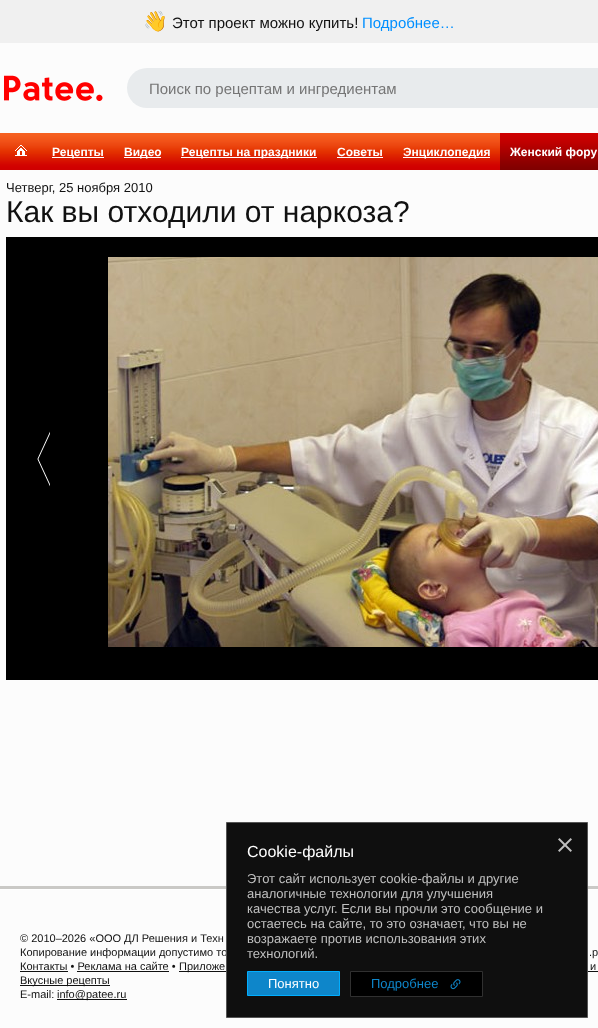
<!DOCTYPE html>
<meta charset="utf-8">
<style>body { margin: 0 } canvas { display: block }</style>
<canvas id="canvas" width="598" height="1028"></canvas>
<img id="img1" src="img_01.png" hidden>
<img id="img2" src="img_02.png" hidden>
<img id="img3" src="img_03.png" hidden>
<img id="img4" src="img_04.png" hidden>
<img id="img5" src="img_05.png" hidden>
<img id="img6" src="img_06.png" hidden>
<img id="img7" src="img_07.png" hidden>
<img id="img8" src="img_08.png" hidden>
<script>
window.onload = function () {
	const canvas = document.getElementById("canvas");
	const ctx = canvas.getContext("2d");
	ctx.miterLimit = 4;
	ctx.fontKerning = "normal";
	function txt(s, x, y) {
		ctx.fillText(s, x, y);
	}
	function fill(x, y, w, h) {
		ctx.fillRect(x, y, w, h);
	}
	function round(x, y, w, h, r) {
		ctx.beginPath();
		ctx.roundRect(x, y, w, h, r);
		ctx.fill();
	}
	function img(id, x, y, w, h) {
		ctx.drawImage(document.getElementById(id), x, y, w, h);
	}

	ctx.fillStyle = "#FCFCFC";
	fill(0, 0, 598, 1028);
	ctx.fillStyle = "#F0F0F0";
	fill(0, 0, 598, 43);
	img("img1", 4, 75, 99, 26);
	ctx.fillStyle = "#E8EBED";
	round(127, 68, 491, 40, 20);
	img("img2", 0, 133, 500, 37);
	img("img3", 15, 145, 12, 11);
	ctx.fillStyle = "#FFFFFF";
	fill(52, 157, 52, 1);
	fill(124, 157, 37, 1);
	fill(181, 157, 136, 1);
	fill(337, 157, 46, 1);
	fill(403, 157, 87, 1);
	img("img4", 500, 133, 98, 37);
	ctx.fillStyle = "#000000";
	fill(6, 237, 592, 443);
	img("img5", 37, 431, 13, 56);
	img("img6", 108, 257, 490, 390);
	ctx.fillStyle = "#CAC9C6";
	fill(0, 886, 598, 3);
	ctx.fillStyle = "#FFFFFF";
	fill(0, 889, 598, 1);
	ctx.fillStyle = "#111111";
	fill(20, 971, 48, 1);
	fill(179, 971, 47, 1);
	fill(588, 971, 10, 1);
	fill(77, 971, 92, 1);
	fill(20, 985, 90, 1);
	fill(57, 999, 70, 1);
	ctx.font = "20px Noto Color Emoji";
	txt("👋", 143, 28);
	ctx.font = "15px Liberation Sans";
	txt("Этот проект можно купить!", 172, 28);
	ctx.fillStyle = "#008FFF";
	txt("Подробнее…", 362, 28);
	ctx.save();
	ctx.beginPath();
	ctx.rect(149, 80, 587, 17);
	ctx.clip();
	ctx.fillStyle = "#757575";
	txt("Поиск по рецептам и ингредиентам", 149, 94);
	ctx.restore();
	ctx.font = "bold 12px Liberation Sans";
	ctx.fillStyle = "#FFFFFF";
	txt("Рецепты", 52, 156);
	txt("Видео", 124, 156);
	txt("Рецепты на праздники", 181, 156);
	txt("Советы", 337, 156);
	txt("Энциклопедия", 403, 156);
	txt("Женский фору", 510, 156);
	ctx.font = "13px Liberation Sans";
	ctx.fillStyle = "#111111";
	txt("Четверг, 25 ноября 2010", 6, 192);
	ctx.font = "30px Liberation Sans";
	txt("Как вы отходили от наркоза?", 6, 222);
	ctx.font = "11px Liberation Sans";
	txt("© 2010–2026 «ООО ДЛ Решения и Техн", 20, 942);
	txt("Копирование информации допустимо то", 20, 956);
	txt(".p", 589, 956);
	txt("Контакты • Реклама на сайте •", 20, 970);
	txt("Приложе", 179, 970);
	txt("и", 590, 970);
	txt("Вкусные рецепты", 20, 984);
	txt("E-mail:", 20, 998);
	txt("info@patee.ru", 57, 998);
	ctx.fillStyle = "#0F0F0F";
	ctx.beginPath();
	ctx.rect(226.5, 822.5, 361, 195);
	ctx.fill();
	ctx.strokeStyle = "#555555";
	ctx.stroke();
	ctx.font = "16px Liberation Sans";
	ctx.fillStyle = "#FFFFFF";
	txt("Cookie-файлы", 247, 857);
	img("img7", 558, 838, 14, 14);
	ctx.font = "13px Liberation Sans";
	ctx.fillStyle = "#C0C0C0";
	txt("Этот сайт использует cookie-файлы и другие", 247, 883);
	txt("аналогичные технологии для улучшения", 247, 898);
	txt("качества услуг. Если вы прочли это сообщение и", 247, 913);
	txt("остаетесь на сайте, то это означает, что вы не", 247, 928);
	txt("возражаете против использования этих", 247, 943);
	txt("технологий.", 247, 958);
	ctx.fillStyle = "#0E86CA";
	ctx.beginPath();
	ctx.rect(247.5, 971.5, 92, 24);
	ctx.fill();
	ctx.strokeStyle = "#00AEFF";
	ctx.stroke();
	ctx.fillStyle = "#FFFFFF";
	txt("Понятно", 268, 988);
	ctx.fillStyle = "#000000";
	ctx.beginPath();
	ctx.rect(350.5, 971.5, 132, 25);
	ctx.fill();
	ctx.strokeStyle = "#303030";
	ctx.stroke();
	ctx.fillStyle = "#0E86CA";
	txt("Подробнее", 371, 988);
	img("img8", 450, 979, 11, 11);
};
</script>
